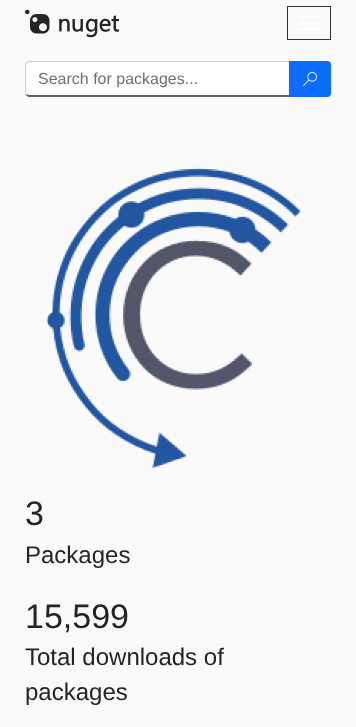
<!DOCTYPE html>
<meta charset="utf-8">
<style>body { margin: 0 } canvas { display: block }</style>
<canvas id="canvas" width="356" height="727"></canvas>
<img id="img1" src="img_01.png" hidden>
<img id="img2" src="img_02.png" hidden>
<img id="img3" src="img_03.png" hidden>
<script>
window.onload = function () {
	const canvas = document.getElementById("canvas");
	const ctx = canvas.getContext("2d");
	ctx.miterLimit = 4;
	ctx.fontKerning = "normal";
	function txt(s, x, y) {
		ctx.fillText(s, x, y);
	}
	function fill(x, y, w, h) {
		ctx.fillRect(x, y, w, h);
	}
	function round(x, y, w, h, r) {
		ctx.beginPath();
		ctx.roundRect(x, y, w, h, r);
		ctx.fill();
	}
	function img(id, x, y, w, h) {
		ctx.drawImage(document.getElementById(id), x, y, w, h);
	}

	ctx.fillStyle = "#FAFAFA";
	fill(0, 0, 356, 727);
	img("img1", 25, 9, 94, 29);
	ctx.strokeStyle = "#333333";
	ctx.strokeRect(287.5, 6.5, 43, 33);
	ctx.fillStyle = "#FFFFFF";
	round(298, 16, 22, 2, 1);
	round(298, 22, 22, 2, 1);
	round(298, 28, 22, 2, 1);
	ctx.beginPath();
	ctx.moveTo(29, 62);
	ctx.lineTo(289, 62);
	ctx.lineTo(289, 95);
	ctx.lineTo(29, 95);
	ctx.bezierCurveTo(27, 95, 26, 94, 26, 93);
	ctx.lineTo(26, 65);
	ctx.bezierCurveTo(26, 63, 27, 62, 29, 62);
	ctx.closePath();
	ctx.fill();
	ctx.fillStyle = "#D1D1D1";
	ctx.beginPath();
	ctx.moveTo(29, 61);
	ctx.lineTo(26, 62);
	ctx.lineTo(27, 63);
	ctx.lineTo(29, 62);
	ctx.lineTo(289, 62);
	ctx.lineTo(290, 61);
	ctx.closePath();
	ctx.fill();
	ctx.fillStyle = "#616161";
	ctx.beginPath();
	ctx.moveTo(290, 97);
	ctx.lineTo(289, 95);
	ctx.lineTo(29, 95);
	ctx.lineTo(26, 94);
	ctx.lineTo(26, 95);
	ctx.bezierCurveTo(27, 96, 28, 97, 29, 97);
	ctx.closePath();
	ctx.fill();
	ctx.fillStyle = "#D1D1D1";
	ctx.beginPath();
	ctx.moveTo(25, 65);
	ctx.lineTo(25, 93);
	ctx.bezierCurveTo(25, 94, 25.5, 94.5, 26, 95.5);
	ctx.lineTo(26.5, 94);
	ctx.lineTo(26, 93);
	ctx.lineTo(26, 64.5);
	ctx.lineTo(27, 63);
	ctx.lineTo(26, 62);
	ctx.bezierCurveTo(25.5, 63, 25, 64, 25, 65);
	ctx.closePath();
	ctx.fill();
	ctx.fillStyle = "#0B6CFF";
	ctx.beginPath();
	ctx.roundRect(289, 61, 42, 36, [0, 4, 4, 0]);
	ctx.fill();
	img("img2", 303, 72, 14, 14);
	img("img3", 46, 167, 255, 302);
	ctx.font = "16px Liberation Sans";
	ctx.fillStyle = "#707070";
	txt("Search for packages...", 38, 84);
	ctx.font = "34px Liberation Sans";
	ctx.fillStyle = "#242424";
	txt("3", 25, 525);
	ctx.font = "24px Liberation Sans";
	txt("Packages", 25, 563);
	ctx.font = "34px Liberation Sans";
	txt("15,599", 25, 628);
	ctx.font = "24px Liberation Sans";
	txt("Total downloads of", 25, 665);
	txt("packages", 25, 700);
};
</script>
